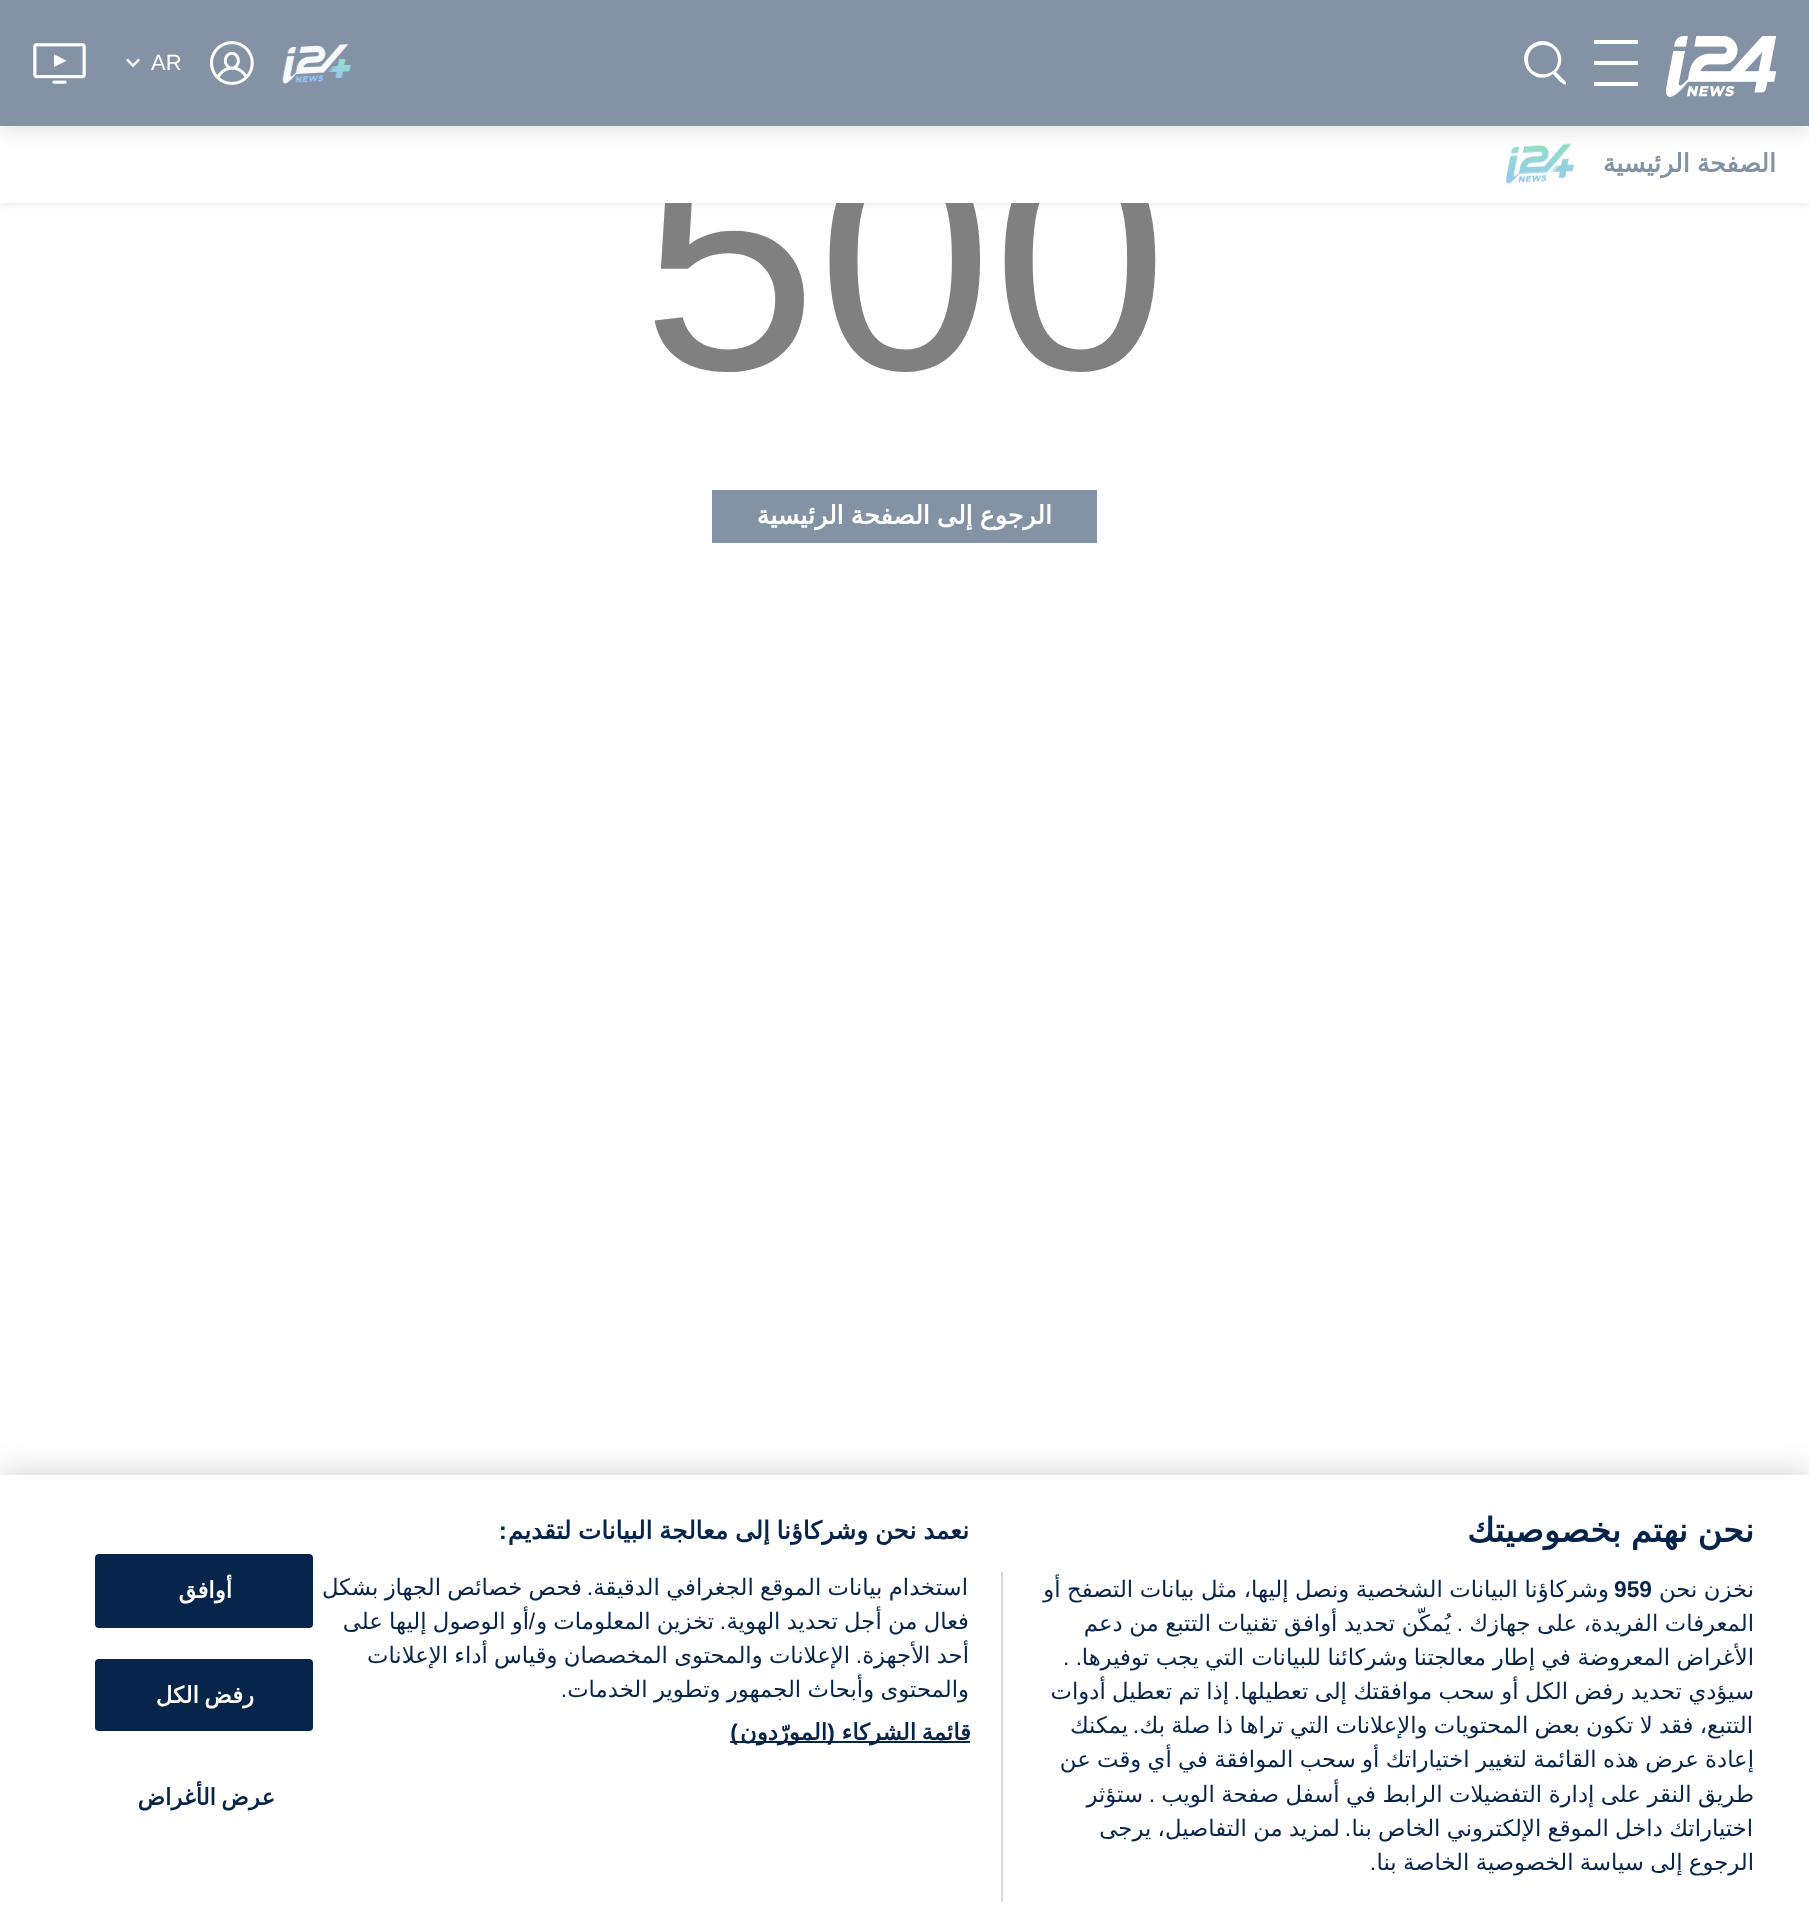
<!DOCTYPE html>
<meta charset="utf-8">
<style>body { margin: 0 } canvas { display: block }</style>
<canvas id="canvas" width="1809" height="1919"></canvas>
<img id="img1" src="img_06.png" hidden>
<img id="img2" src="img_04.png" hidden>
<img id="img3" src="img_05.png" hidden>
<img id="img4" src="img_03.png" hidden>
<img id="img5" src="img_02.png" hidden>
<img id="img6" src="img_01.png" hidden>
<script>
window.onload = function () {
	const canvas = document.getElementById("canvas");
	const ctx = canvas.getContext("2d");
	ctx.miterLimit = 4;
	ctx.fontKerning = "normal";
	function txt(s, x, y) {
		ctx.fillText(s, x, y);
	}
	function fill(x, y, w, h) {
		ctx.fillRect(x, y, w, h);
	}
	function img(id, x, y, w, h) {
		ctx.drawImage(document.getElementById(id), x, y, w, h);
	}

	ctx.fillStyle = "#FFFFFF";
	fill(0, 0, 1809, 1919);
	ctx.fillStyle = "rgba(128, 128, 128, 0.25)";
	ctx.filter = "blur(4.5px)";
	ctx.beginPath();
	ctx.rect(0, 126, 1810, 77);
	ctx.fill();
	ctx.filter = "none";
	ctx.fillStyle = "#8392A5";
	fill(712, 490, 385, 53);
	ctx.fillStyle = "rgba(0, 0, 0, 0.2)";
	ctx.filter = "blur(16px)";
	ctx.beginPath();
	ctx.rect(0, 1475, 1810, 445);
	ctx.fill();
	ctx.filter = "none";
	ctx.fillStyle = "#FFFFFF";
	fill(0, 1475, 1809, 444);
	ctx.fillStyle = "#07244B";
	fill(730, 1741, 240, 2);
	ctx.fillStyle = "#D8D8D8";
	fill(1001, 1572, 2, 330);
	ctx.fillStyle = "#07244B";
	ctx.beginPath();
	ctx.roundRect(96, 1555, 216, 72, 3);
	ctx.fill();
	ctx.strokeStyle = "#07244B";
	ctx.lineWidth = 2;
	ctx.stroke();
	ctx.beginPath();
	ctx.roundRect(96, 1660, 216, 70, 3);
	ctx.fill();
	ctx.stroke();
	ctx.font = "315px Liberation Sans";
	ctx.fillStyle = "#808080";
	txt("500", 642, 369);
	ctx.fillStyle = "#FFFFFF";
	fill(0, 126, 1809, 77);
	img("img1", 1506, 143, 68, 41);
	ctx.fillStyle = "rgba(128, 128, 128, 0.25)";
	ctx.filter = "blur(10.5px)";
	ctx.beginPath();
	ctx.rect(0, 4, 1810, 126);
	ctx.fill();
	ctx.filter = "none";
	ctx.fillStyle = "#8392A5";
	fill(0, 0, 1809, 126);
	img("img2", 126, 58, 14, 10);
	img("img3", 33, 43, 53, 41);
	img("img4", 210, 41, 44, 44);
	img("img5", 282, 44, 69, 40);
	ctx.fillStyle = "#FFFFFF";
	ctx.beginPath();
	ctx.moveTo(1566, 82);
	ctx.lineTo(1556, 72);
	ctx.bezierCurveTo(1572, 56, 1549, 31, 1531, 45);
	ctx.bezierCurveTo(1513, 60, 1534, 88, 1553, 74);
	ctx.bezierCurveTo(1555, 76, 1564, 87, 1566, 84);
	ctx.bezierCurveTo(1566, 84, 1566, 83, 1566, 82);
	ctx.closePath();
	ctx.moveTo(1528, 60);
	ctx.bezierCurveTo(1528, 40, 1558, 40, 1558, 60);
	ctx.bezierCurveTo(1558, 79, 1528, 79, 1528, 60);
	ctx.closePath();
	ctx.fill();
	img("img6", 1666, 36, 110, 61);
	ctx.font = "22px Liberation Sans";
	txt("AR", 151, 70);
	fill(1594, 82, 44, 4);
	fill(1594, 61, 44, 4);
	fill(1594, 40, 44, 4);
	ctx.wordSpacing = "-1px";
	ctx.direction = "rtl";
	ctx.font = "bold 25.25px DejaVu Sans";
	ctx.fillStyle = "#8392A5";
	txt("الصفحة الرئيسية", 1776, 172);
	ctx.fillStyle = "#FFFFFF";
	txt("الرجوع إلى الصفحة الرئيسية", 1052, 524);
	ctx.font = "bold 33.5px DejaVu Sans";
	ctx.fillStyle = "#07244B";
	txt("نحن نهتم بخصوصيتك", 1754, 1542);
	ctx.font = "bold 24.6px DejaVu Sans";
	txt("نعمد نحن وشركاؤنا إلى معالجة البيانات لتقديم", 969, 1539);
	ctx.wordSpacing = "0px";
	ctx.font = "bold 24.6px Liberation Sans";
	txt(":", 507, 1539);
	ctx.wordSpacing = "-0.9px";
	ctx.font = "22.75px DejaVu Sans";
	txt("استخدام بيانات الموقع الجغرافي الدقيقة", 968, 1595);
	ctx.wordSpacing = "0px";
	ctx.font = "22.75px Liberation Sans";
	txt(".", 593, 1595);
	ctx.wordSpacing = "-0.9px";
	ctx.font = "22.75px DejaVu Sans";
	txt("فحص خصائص الجهاز بشكل", 582, 1595);
	ctx.wordSpacing = "-1px";
	txt("فعال من أجل تحديد الهوية", 969, 1629);
	ctx.wordSpacing = "0px";
	ctx.font = "22.75px Liberation Sans";
	txt(".", 726, 1629);
	ctx.wordSpacing = "-1px";
	ctx.font = "22.75px DejaVu Sans";
	txt("أو الوصول إليها على", 529, 1629);
	ctx.wordSpacing = "0px";
	ctx.font = "22.75px Liberation Sans";
	txt("/", 535, 1629);
	ctx.wordSpacing = "-1px";
	ctx.font = "22.75px DejaVu Sans";
	txt("تخزين المعلومات و", 714, 1629);
	txt("أحد الأجهزة", 969, 1663);
	ctx.wordSpacing = "0px";
	ctx.font = "22.75px Liberation Sans";
	txt(".", 862, 1663);
	ctx.wordSpacing = "-1px";
	ctx.font = "22.75px DejaVu Sans";
	txt("الإعلانات والمحتوى المخصصان وقياس أداء الإعلانات", 850, 1663);
	ctx.wordSpacing = "-0.9px";
	txt("والمحتوى وأبحاث الجمهور وتطوير الخدمات", 969, 1697);
	ctx.wordSpacing = "0px";
	ctx.font = "22.75px Liberation Sans";
	txt(".", 567, 1697);
	ctx.letterSpacing = "0.25px";
	ctx.wordSpacing = "-2px";
	ctx.font = "bold 22.75px DejaVu Sans";
	txt("قائمة الشركاء", 971, 1740);
	ctx.wordSpacing = "0px";
	ctx.font = "bold 22.75px Liberation Sans";
	txt("(", 835, 1740);
	ctx.font = "bold 22.75px DejaVu Sans";
	txt("المورّدون", 827, 1740);
	ctx.font = "bold 22.75px Liberation Sans";
	txt(")", 738, 1740);
	ctx.letterSpacing = "0px";
	ctx.wordSpacing = "-0.9px";
	ctx.font = "22.75px DejaVu Sans";
	txt("نخزن نحن", 1754, 1597);
	ctx.wordSpacing = "0px";
	ctx.direction = "ltr";
	ctx.font = "bold 22.75px Liberation Sans";
	txt("959", 1614, 1597);
	ctx.wordSpacing = "-0.75px";
	ctx.direction = "rtl";
	ctx.font = "22.75px DejaVu Sans";
	txt("وشركاؤنا البيانات الشخصية ونصل إليها، مثل بيانات التصفح أو", 1609, 1597);
	txt("المعرفات الفريدة، على جهازك", 1754, 1631);
	ctx.wordSpacing = "0px";
	ctx.font = "22.75px Liberation Sans";
	txt(".", 1463, 1631);
	ctx.wordSpacing = "-0.75px";
	ctx.font = "22.75px DejaVu Sans";
	txt("يُمكّن تحديد أوافق تقنيات التتبع من دعم", 1451, 1631);
	ctx.wordSpacing = "0px";
	txt("الأغراض", 1754, 1665);
	txt("المعروضة", 1670, 1665);
	txt("في", 1571, 1665);
	txt("إطار", 1535, 1665);
	txt("معالجتنا", 1486, 1665);
	txt("وشركائنا", 1408, 1665);
	txt("للبيانات", 1321, 1665);
	txt("التي", 1244, 1665);
	txt("يجب", 1199, 1665);
	txt("توفيرها", 1149, 1665);
	ctx.font = "22.75px Liberation Sans";
	txt(". .", 1082, 1665);
	ctx.save();
	ctx.beginPath();
	ctx.rect(313, 1510, 1441, 392);
	ctx.clip();
	ctx.wordSpacing = "-0.75px";
	ctx.font = "22.75px DejaVu Sans";
	txt("سيؤدي تحديد رفض الكل أو سحب موافقتك إلى تعطيلها", 1754, 1699);
	ctx.restore();
	txt(".", 1240, 1699);
	ctx.wordSpacing = "-0.9px";
	ctx.font = "22.75px DejaVu Sans";
	txt("إذا تم تعطيل أدوات", 1229, 1699);
	ctx.save();
	ctx.beginPath();
	ctx.rect(313, 1510, 1441, 392);
	ctx.clip();
	txt("التتبع، فقد لا تكون بعض المحتويات والإعلانات التي تراها ذا صلة بك", 1753, 1733);
	ctx.restore();
	ctx.wordSpacing = "0px";
	ctx.font = "22.75px Liberation Sans";
	txt(".", 1139, 1733);
	ctx.font = "22.75px DejaVu Sans";
	txt("يمكنك", 1128, 1733);
	ctx.save();
	ctx.beginPath();
	ctx.rect(313, 1510, 1441, 392);
	ctx.clip();
	ctx.wordSpacing = "-0.9px";
	txt("إعادة عرض هذه القائمة لتغيير اختياراتك أو سحب الموافقة في أي وقت عن", 1754, 1767);
	ctx.wordSpacing = "-0.75px";
	txt("طريق النقر على إدارة التفضيلات الرابط في أسفل صفحة الويب", 1754, 1802);
	ctx.restore();
	ctx.font = "22.75px Liberation Sans";
	txt(".", 1155, 1802);
	ctx.font = "22.75px DejaVu Sans";
	txt("ستؤثر", 1143, 1802);
	ctx.save();
	ctx.beginPath();
	ctx.rect(313, 1510, 1441, 392);
	ctx.clip();
	ctx.wordSpacing = "-0.9px";
	txt("اختياراتك داخل الموقع الإلكتروني الخاص بنا", 1753, 1836);
	ctx.restore();
	ctx.font = "22.75px Liberation Sans";
	txt(".", 1351, 1836);
	ctx.wordSpacing = "-0.9px";
	ctx.font = "22.75px DejaVu Sans";
	txt("لمزيد من التفاصيل، يرجى", 1340, 1836);
	ctx.save();
	ctx.beginPath();
	ctx.rect(313, 1510, 1441, 392);
	ctx.clip();
	txt("الرجوع إلى سياسة الخصوصية الخاصة بنا", 1754, 1870);
	ctx.restore();
	ctx.wordSpacing = "0px";
	ctx.font = "22.75px Liberation Sans";
	txt(".", 1376, 1870);
	ctx.letterSpacing = "0.25px";
	ctx.font = "bold 22.75px DejaVu Sans";
	ctx.fillStyle = "#FFFFFF";
	txt("أوافق", 232, 1598);
	ctx.wordSpacing = "-2px";
	txt("رفض الكل", 254, 1703);
	ctx.fillStyle = "#07244B";
	txt("عرض الأغراض", 275, 1805);
};
</script>
